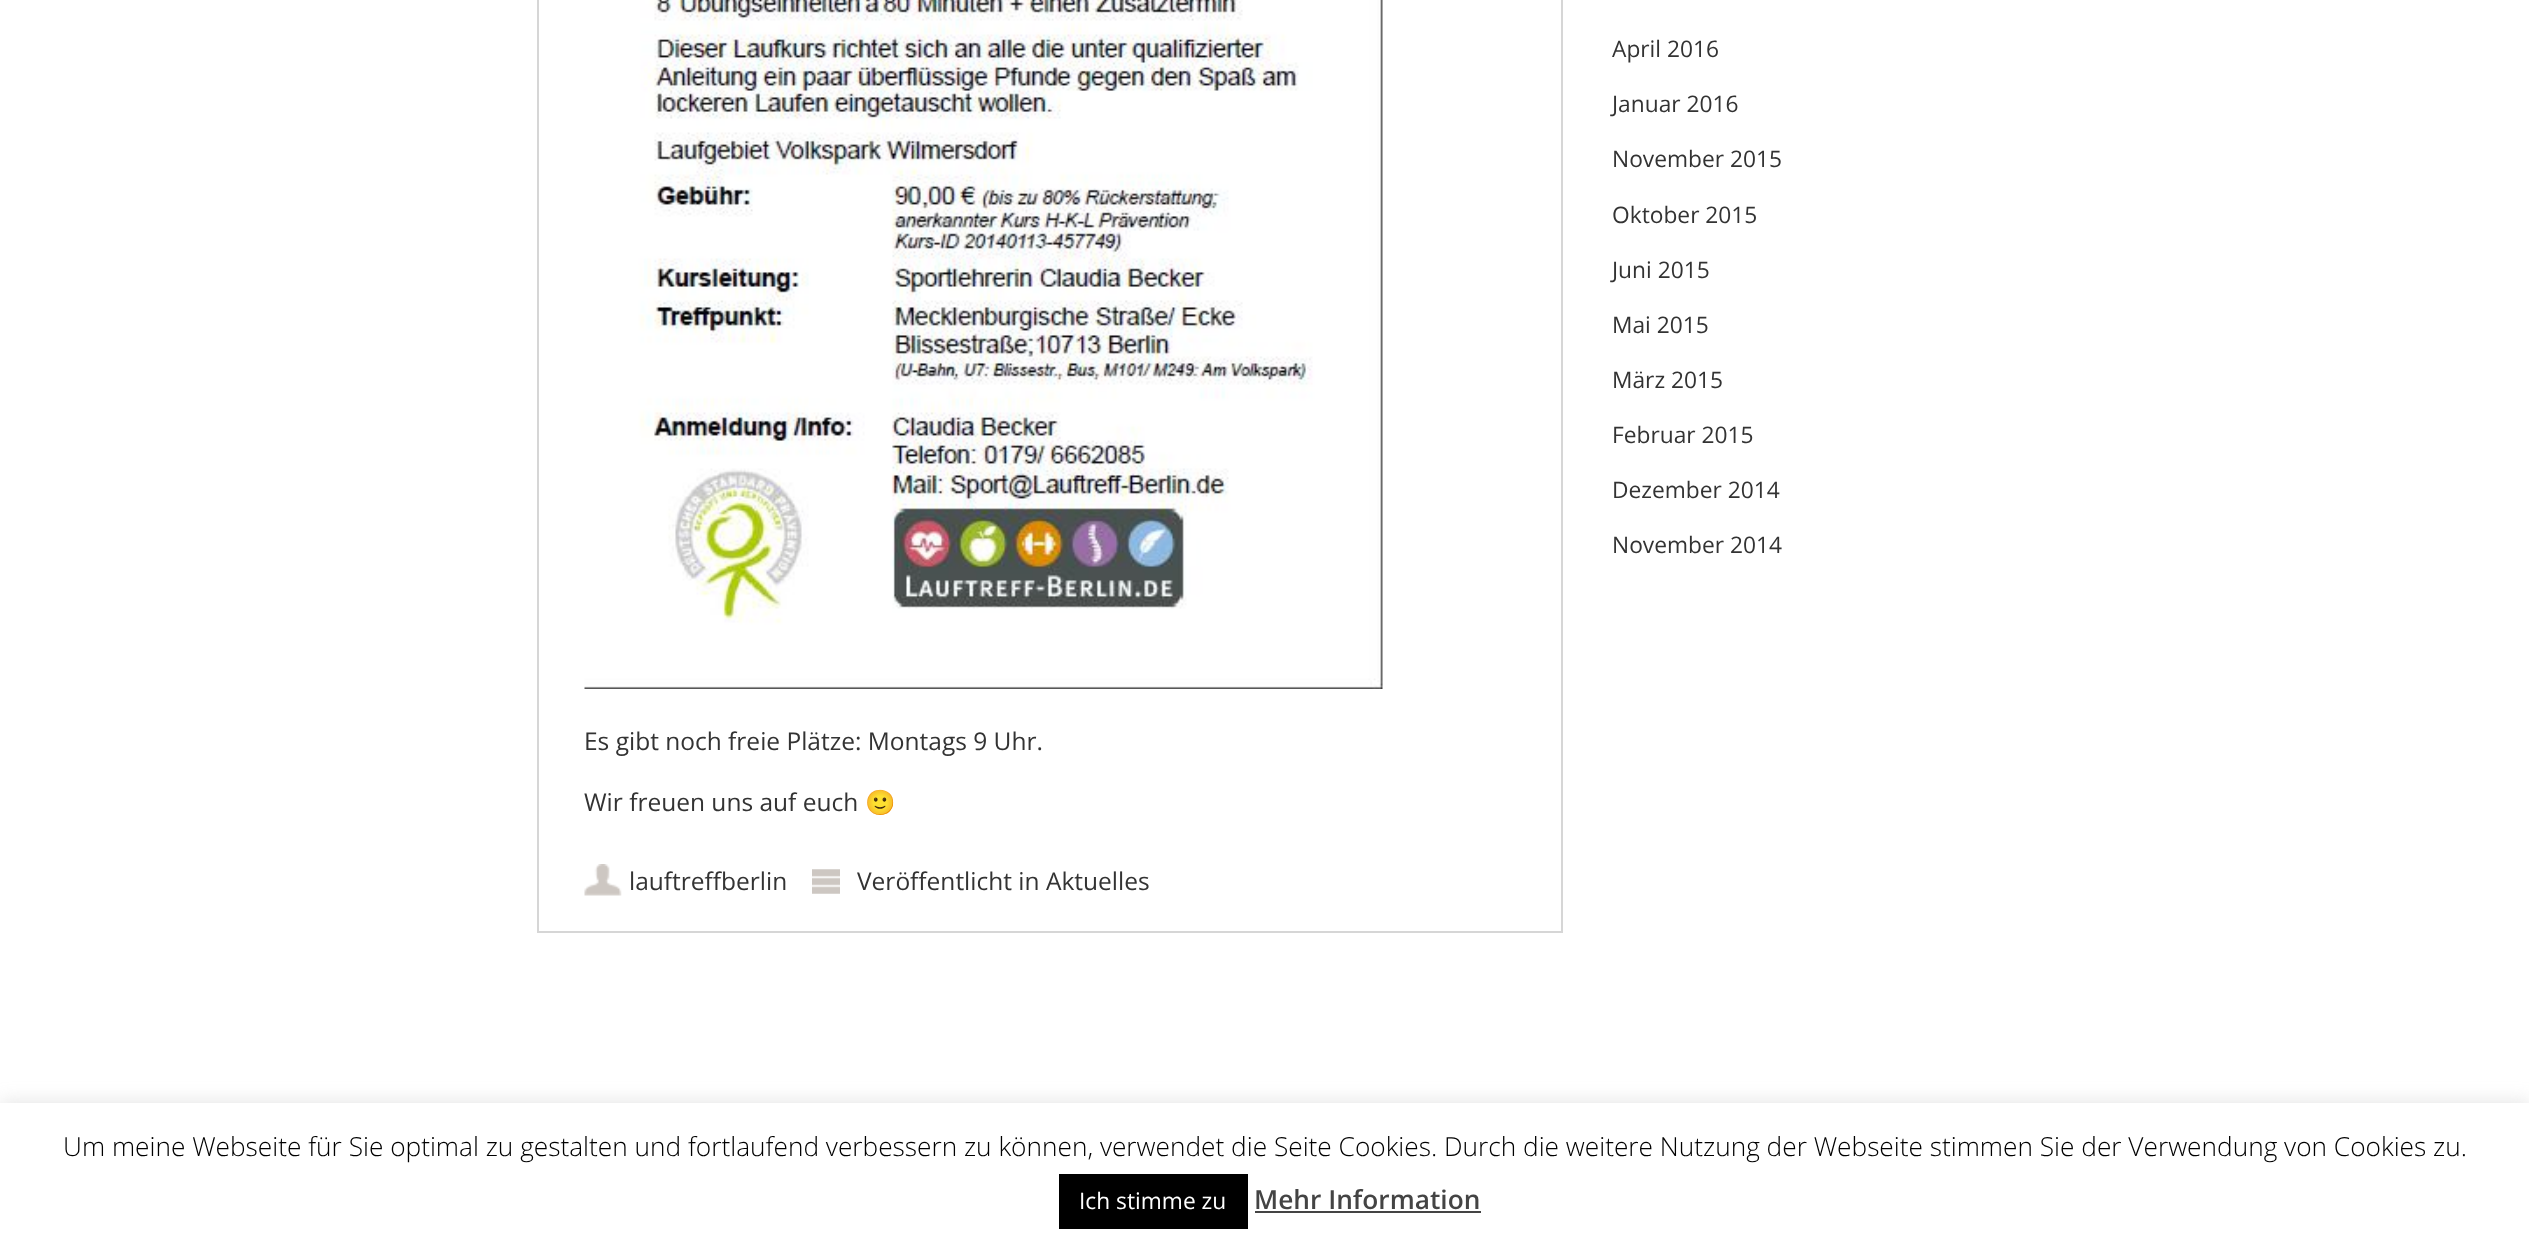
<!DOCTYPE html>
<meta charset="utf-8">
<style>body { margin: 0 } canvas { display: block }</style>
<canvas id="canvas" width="2529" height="1249"></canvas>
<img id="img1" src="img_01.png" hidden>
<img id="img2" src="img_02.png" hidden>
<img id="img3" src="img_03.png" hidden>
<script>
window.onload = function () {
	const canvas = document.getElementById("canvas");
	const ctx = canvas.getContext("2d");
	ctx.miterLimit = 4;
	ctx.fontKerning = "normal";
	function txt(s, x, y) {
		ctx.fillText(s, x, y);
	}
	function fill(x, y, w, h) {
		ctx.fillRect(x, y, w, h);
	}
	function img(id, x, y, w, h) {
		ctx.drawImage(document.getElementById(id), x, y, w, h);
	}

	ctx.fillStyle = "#FFFFFF";
	fill(0, 0, 2529, 1249);
	ctx.strokeStyle = "#D6D6D6";
	ctx.lineWidth = 2;
	ctx.strokeRect(538, -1, 1024, 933);
	img("img1", 584, 0, 799, 689);
	img("img2", 584, 864, 38, 32);
	img("img3", 812, 869, 28, 25);
	ctx.fillStyle = "rgba(172, 171, 171, 0.3)";
	ctx.filter = "blur(9px)";
	ctx.beginPath();
	ctx.rect(0, 1101, 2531, 147);
	ctx.fill();
	ctx.filter = "none";
	ctx.fillStyle = "#FFFFFF";
	fill(0, 1103, 2529, 146);
	ctx.fillStyle = "#000000";
	fill(1059, 1174, 189, 55);
	ctx.fillStyle = "#444444";
	fill(1255, 1211, 226, 2);
	ctx.font = "22.75px Open Sans";
	ctx.fillStyle = "#333333";
	txt("April 2016", 1612, 57);
	txt("Januar 2016", 1612, 112);
	txt("November 2015", 1612, 167);
	txt("Oktober 2015", 1612, 223);
	txt("Juni 2015", 1612, 278);
	txt("Mai 2015", 1612, 333);
	txt("März 2015", 1612, 388);
	txt("Februar 2015", 1612, 443);
	txt("Dezember 2014", 1612, 498);
	txt("November 2014", 1612, 553);
	ctx.font = "24.5px Open Sans";
	txt("Es gibt noch freie Plätze: Montags 9 Uhr.", 584, 750);
	txt("Wir freuen uns auf euch", 584, 811);
	ctx.font = "24.5px Noto Color Emoji";
	txt("🙂", 865, 811);
	ctx.font = "24.5px Open Sans";
	txt("lauftreffberlin", 629, 890);
	txt("Veröffentlicht in Aktuelles", 857, 890);
	ctx.font = "300 26.25px Open Sans";
	ctx.fillStyle = "#000000";
	txt("Um meine Webseite für Sie optimal zu gestalten und fortlaufend verbessern zu können, verwendet die Seite Cookies. Durch die weitere Nutzung der Webseite stimmen Sie der Verwendung von Cookies zu.", 63, 1156);
	ctx.font = "22.75px Open Sans";
	ctx.fillStyle = "#FFFFFF";
	txt("Ich stimme zu", 1079, 1209);
	ctx.font = "600 26.25px Open Sans";
	ctx.fillStyle = "#444444";
	txt("Mehr Information", 1254, 1209);
};
</script>
